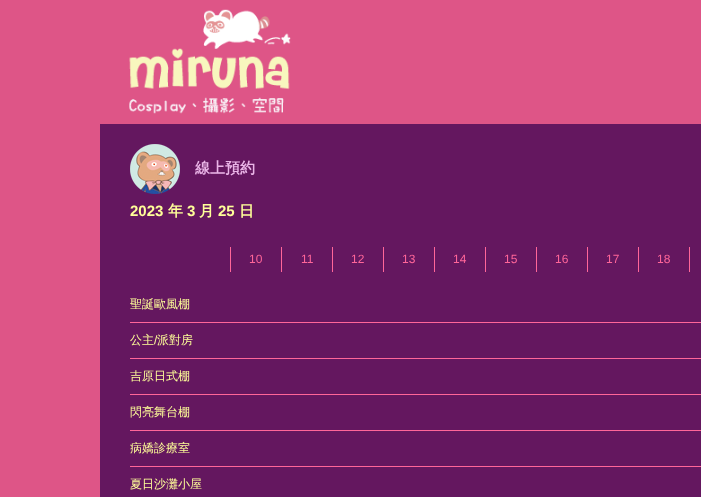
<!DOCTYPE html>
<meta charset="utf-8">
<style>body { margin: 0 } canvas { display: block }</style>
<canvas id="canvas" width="701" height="497"></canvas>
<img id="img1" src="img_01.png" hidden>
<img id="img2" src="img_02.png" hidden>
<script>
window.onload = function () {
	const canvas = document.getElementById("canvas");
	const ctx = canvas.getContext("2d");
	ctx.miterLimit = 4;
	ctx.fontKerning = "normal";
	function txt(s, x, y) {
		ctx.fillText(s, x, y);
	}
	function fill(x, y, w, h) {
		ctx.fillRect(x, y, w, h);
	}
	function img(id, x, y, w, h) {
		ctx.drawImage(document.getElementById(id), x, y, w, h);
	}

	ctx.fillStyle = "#DE5587";
	fill(0, 0, 701, 497);
	img("img1", 129, 9, 162, 105);
	ctx.fillStyle = "#64175F";
	fill(100, 124, 601, 373);
	img("img2", 130, 144, 50, 50);
	ctx.fillStyle = "#FF6699";
	fill(230, 247, 1, 25);
	fill(281, 247, 1, 25);
	fill(332, 247, 1, 25);
	fill(383, 247, 1, 25);
	fill(434, 247, 1, 25);
	fill(485, 247, 1, 25);
	fill(536, 247, 1, 25);
	fill(587, 247, 1, 25);
	fill(638, 247, 1, 25);
	fill(689, 247, 1, 25);
	fill(130, 322, 571, 1);
	fill(130, 358, 571, 1);
	fill(130, 394, 571, 1);
	fill(130, 430, 571, 1);
	fill(130, 466, 571, 1);
	ctx.font = "bold 15px WenQuanYi Zen Hei";
	ctx.fillStyle = "#EAB5E7";
	txt("線上預約", 195, 173);
	ctx.font = "bold 15px Liberation Sans";
	ctx.fillStyle = "#FFFF99";
	txt("2023", 130, 216);
	ctx.font = "bold 15px WenQuanYi Zen Hei";
	txt("年", 168, 216);
	ctx.font = "bold 15px Liberation Sans";
	txt("3", 187, 216);
	ctx.font = "bold 15px WenQuanYi Zen Hei";
	txt("月", 199, 216);
	ctx.font = "bold 15px Liberation Sans";
	txt("25", 218, 216);
	ctx.font = "bold 15px WenQuanYi Zen Hei";
	txt("日", 239, 216);
	ctx.font = "12px Liberation Sans";
	ctx.fillStyle = "#FF6699";
	txt("10", 249, 263);
	txt("11", 301, 263);
	txt("12", 351, 263);
	txt("13", 402, 263);
	txt("14", 453, 263);
	txt("15", 504, 263);
	txt("16", 555, 263);
	txt("17", 606, 263);
	txt("18", 657, 263);
	ctx.font = "500 12px WenQuanYi Zen Hei";
	ctx.fillStyle = "#FFFF99";
	txt("聖誕歐風棚", 130, 308);
	txt("公主", 130, 344);
	ctx.font = "12px Liberation Sans";
	txt("/", 154, 344);
	ctx.font = "500 12px WenQuanYi Zen Hei";
	txt("派對房", 157, 344);
	txt("吉原日式棚", 130, 380);
	txt("閃亮舞台棚", 130, 416);
	txt("病嬌診療室", 130, 452);
	txt("夏日沙灘小屋", 130, 488);
};
</script>
